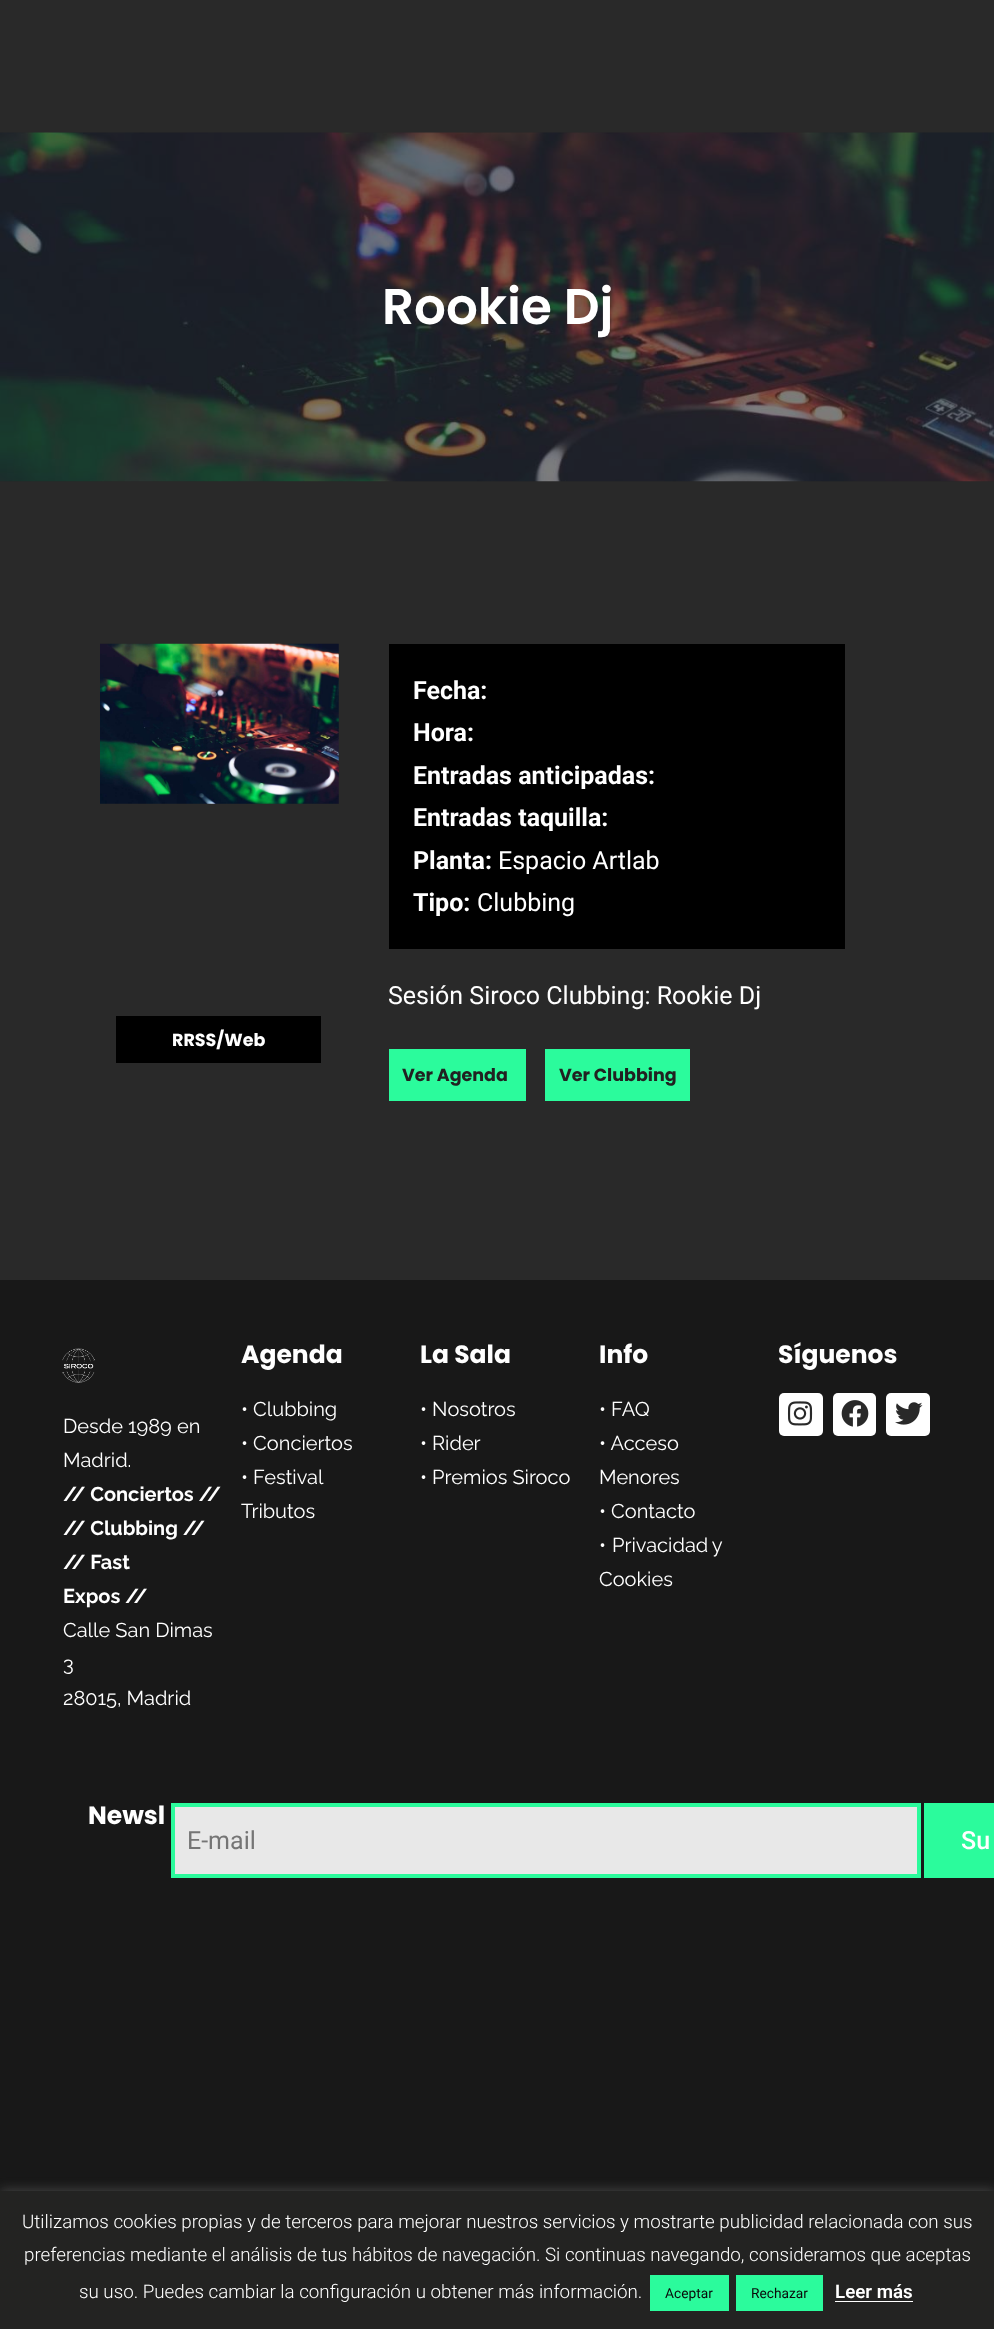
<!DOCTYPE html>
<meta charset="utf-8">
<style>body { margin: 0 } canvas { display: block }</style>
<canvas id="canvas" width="994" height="2329"></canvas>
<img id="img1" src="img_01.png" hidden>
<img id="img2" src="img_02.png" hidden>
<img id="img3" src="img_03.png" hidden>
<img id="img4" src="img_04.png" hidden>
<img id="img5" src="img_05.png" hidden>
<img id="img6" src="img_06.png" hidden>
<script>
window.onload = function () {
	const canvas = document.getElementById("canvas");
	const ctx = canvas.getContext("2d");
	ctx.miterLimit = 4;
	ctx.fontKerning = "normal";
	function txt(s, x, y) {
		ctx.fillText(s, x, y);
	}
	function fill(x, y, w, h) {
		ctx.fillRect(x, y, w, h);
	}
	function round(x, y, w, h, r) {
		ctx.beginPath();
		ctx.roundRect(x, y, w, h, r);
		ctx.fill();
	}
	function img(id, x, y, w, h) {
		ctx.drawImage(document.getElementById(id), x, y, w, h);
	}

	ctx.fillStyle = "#292929";
	fill(0, 0, 994, 2329);
	img("img1", 0, 132, 994, 350);
	img("img2", 100, 643, 239, 161);
	ctx.fillStyle = "#000000";
	fill(116, 1016, 205, 47);
	fill(389, 644, 456, 305);
	ctx.fillStyle = "#2BFB9C";
	fill(389, 1049, 137, 52);
	fill(545, 1049, 145, 52);
	ctx.fillStyle = "#181818";
	fill(0, 1280, 994, 911);
	img("img3", 62, 1348, 33, 35);
	ctx.fillStyle = "#FFFFFF";
	round(779, 1393, 44, 43, 5);
	img("img4", 787, 1401, 26, 25);
	round(833, 1393, 43, 43, 5);
	img("img5", 841, 1400, 28, 27);
	round(886, 1393, 44, 43, 5);
	img("img6", 895, 1402, 28, 23);
	ctx.fillStyle = "rgba(255, 255, 255, 0.9)";
	ctx.beginPath();
	ctx.rect(173, 1805, 746, 71);
	ctx.fill();
	ctx.strokeStyle = "#2BFB9C";
	ctx.lineWidth = 4;
	ctx.stroke();
	ctx.fillStyle = "#2BFB9C";
	fill(924, 1803, 70, 75);
	ctx.fillStyle = "rgba(172, 171, 171, 0.3)";
	ctx.filter = "blur(6px)";
	ctx.beginPath();
	ctx.rect(0, 2190, 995, 139);
	ctx.fill();
	ctx.filter = "none";
	ctx.fillStyle = "#232322";
	fill(0, 2191, 994, 138);
	ctx.fillStyle = "#2BFB9C";
	fill(650, 2275, 79, 36);
	fill(736, 2275, 87, 36);
	ctx.fillStyle = "#FFFFFF";
	fill(835, 2301, 78, 1);
	ctx.font = "600 50px Poppins";
	txt("Rookie Dj", 382, 324);
	ctx.font = "bold 17.5px Poppins";
	txt("RRSS/Web", 172, 1046);
	ctx.font = "bold 25px Roboto";
	txt("Fecha:", 413, 699);
	txt("Hora:", 413, 741);
	txt("Entradas anticipadas:", 413, 784);
	txt("Entradas taquilla:", 413, 826);
	txt("Planta:", 413, 869);
	ctx.font = "25px Roboto";
	txt("Espacio Artlab", 498, 869);
	ctx.font = "bold 25px Roboto";
	txt("Tipo:", 413, 911);
	ctx.font = "25px Roboto";
	txt("Clubbing", 477, 911);
	txt("Sesión Siroco Clubbing: Rookie Dj", 388, 1004);
	ctx.font = "bold 17.5px Poppins";
	ctx.fillStyle = "#212121";
	txt("Ver Agenda", 402, 1081);
	txt("Ver Clubbing", 559, 1081);
	ctx.font = "20px Raleway";
	ctx.fillStyle = "#FFFFFF";
	txt("Desde 1989 en", 63, 1433);
	txt("Madrid.", 63, 1467);
	ctx.font = "bold 20px Raleway";
	txt("// Conciertos //", 63, 1501);
	txt("// Clubbing //", 63, 1535);
	txt("// Fast", 63, 1569);
	txt("Expos //", 63, 1603);
	ctx.font = "20px Raleway";
	txt("Calle San Dimas", 63, 1637);
	txt("3", 63, 1671);
	txt("28015, Madrid", 63, 1705);
	ctx.font = "bold 25px Poppins";
	txt("Agenda", 241, 1363);
	ctx.font = "20px Raleway";
	txt("• Clubbing", 241, 1416);
	txt("• Conciertos", 241, 1450);
	txt("• Festival", 241, 1484);
	txt("Tributos", 241, 1518);
	ctx.font = "bold 25px Poppins";
	txt("La Sala", 420, 1363);
	ctx.font = "20px Raleway";
	txt("• Nosotros", 420, 1416);
	txt("• Rider", 420, 1450);
	txt("• Premios Siroco", 420, 1484);
	ctx.font = "bold 25px Poppins";
	txt("Info", 599, 1363);
	ctx.font = "20px Raleway";
	txt("• FAQ", 599, 1416);
	txt("• Acceso", 599, 1450);
	txt("Menores", 599, 1484);
	txt("• Contacto", 599, 1518);
	txt("•", 599, 1552);
	ctx.wordSpacing = "-1px";
	txt("Privacidad y", 612, 1552);
	ctx.wordSpacing = "0px";
	txt("Cookies", 599, 1586);
	ctx.font = "bold 25px Poppins";
	txt("Síguenos", 778, 1363);
	txt("Newsl", 88, 1824);
	ctx.font = "25px Roboto";
	ctx.fillStyle = "#757575";
	txt("E-mail", 187, 1849);
	ctx.font = "500 25px Roboto";
	ctx.fillStyle = "#FFFFFF";
	txt("Su", 961, 1849);
	ctx.font = "300 18.75px Roboto";
	txt("Utilizamos cookies propias y de terceros para mejorar nuestros servicios y mostrarte publicidad relacionada con sus", 22, 2228);
	txt("preferencias mediante el análisis de tus hábitos de navegación. Si continuas navegando, consideramos que aceptas", 24, 2261);
	txt("su uso. Puedes cambiar la configuración u obtener más información.", 79, 2298);
	ctx.font = "13.75px Roboto";
	ctx.fillStyle = "#0A0A0A";
	txt("Aceptar", 665, 2298);
	txt("Rechazar", 751, 2298);
	ctx.font = "600 18.75px Roboto";
	ctx.fillStyle = "#FFFFFF";
	txt("Leer más", 835, 2298);
};
</script>
